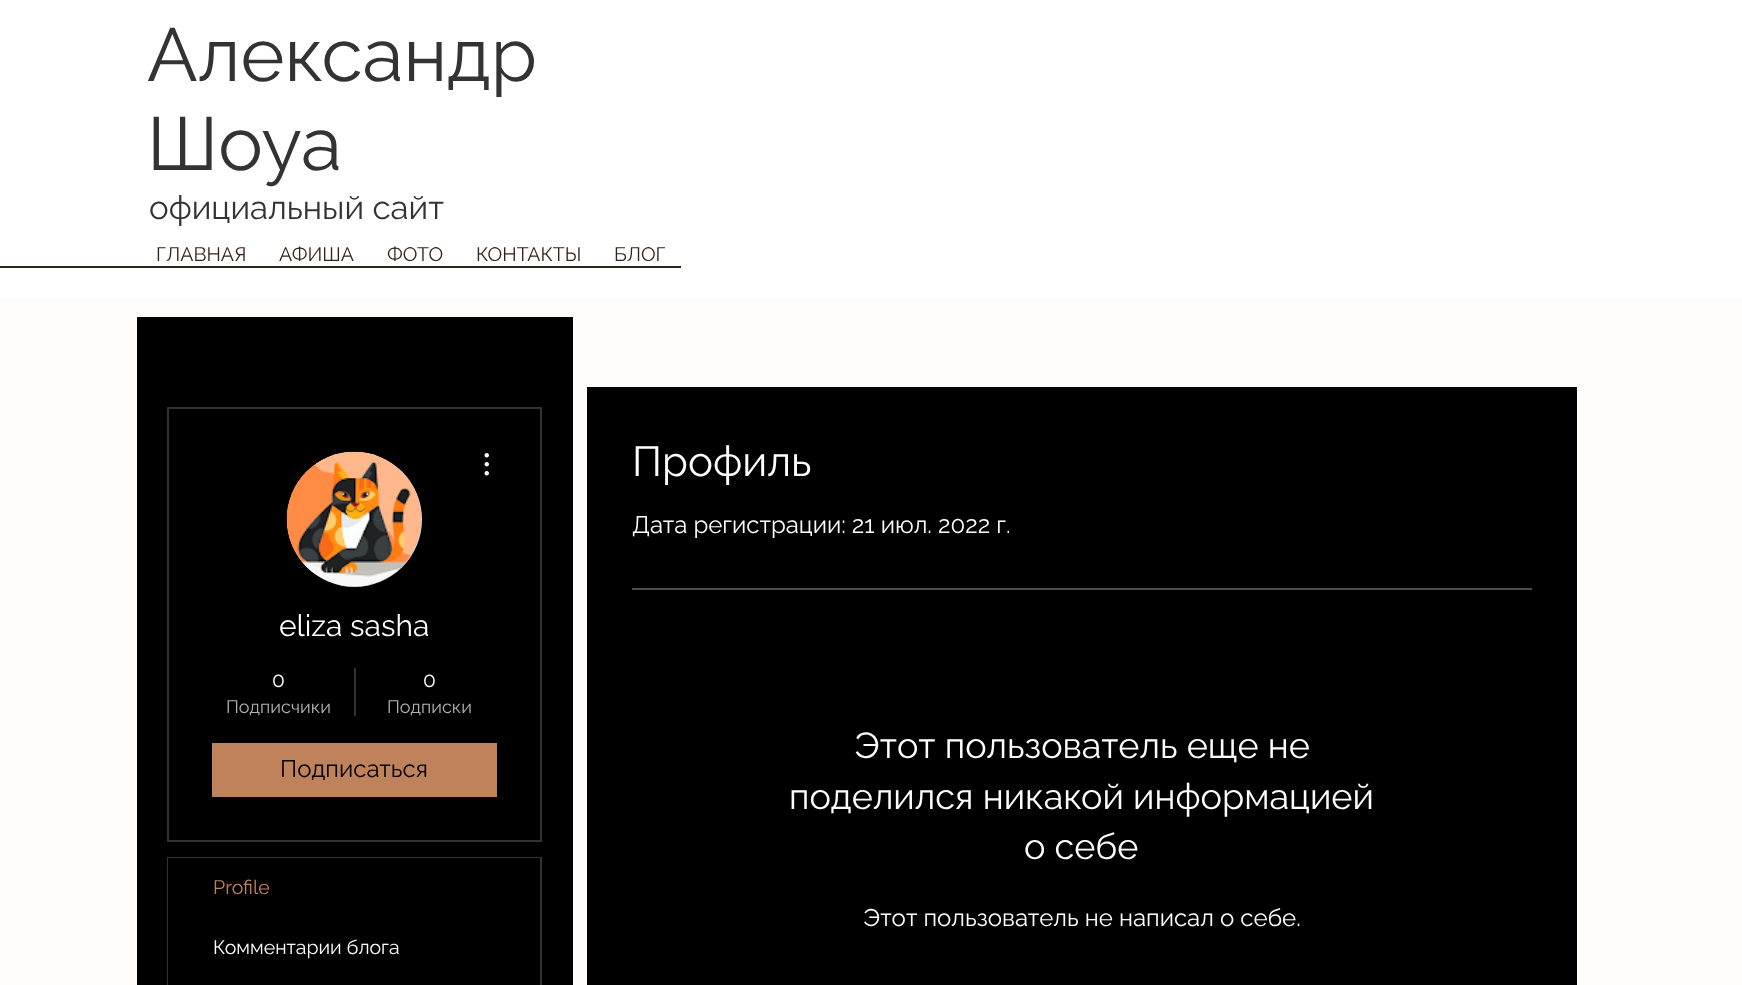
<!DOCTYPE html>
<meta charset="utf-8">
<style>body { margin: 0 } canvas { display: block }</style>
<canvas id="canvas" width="1742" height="985"></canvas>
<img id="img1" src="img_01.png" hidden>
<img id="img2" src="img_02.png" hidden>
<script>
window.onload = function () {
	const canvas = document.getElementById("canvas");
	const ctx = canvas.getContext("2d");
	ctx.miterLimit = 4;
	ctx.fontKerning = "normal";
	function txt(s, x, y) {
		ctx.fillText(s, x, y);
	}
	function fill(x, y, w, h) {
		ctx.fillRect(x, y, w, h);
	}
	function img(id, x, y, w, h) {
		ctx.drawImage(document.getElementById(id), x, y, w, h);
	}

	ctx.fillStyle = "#FFFCFC";
	fill(0, 0, 1742, 985);
	ctx.fillStyle = "#FFFFFF";
	fill(0, 0, 1742, 297);
	ctx.fillStyle = "#342216";
	fill(0, 266, 681, 2);
	ctx.fillStyle = "#000000";
	fill(137, 317, 436, 668);
	ctx.strokeStyle = "#333232";
	ctx.lineWidth = 2;
	ctx.strokeRect(168, 408, 373, 433);
	ctx.fillStyle = "#D8D8D8";
	ctx.beginPath();
	ctx.arc(354.5, 519.5, 67.5, 0, Math.PI * 2);
	ctx.fill();
	img("img1", 286, 451, 136, 136);
	img("img2", 484, 453, 5, 23);
	ctx.fillStyle = "#333232";
	fill(354, 668, 2, 48);
	ctx.fillStyle = "#BF825A";
	fill(212, 743, 285, 54);
	ctx.strokeRect(168, 858, 373, 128);
	ctx.fillStyle = "#000000";
	fill(168, 858, 372, 60);
	fill(168, 918, 1, 67);
	fill(587, 387, 990, 598);
	ctx.fillStyle = "#4D4C4C";
	fill(632, 588, 900, 2);
	ctx.font = "75px Raleway";
	ctx.fillStyle = "#333333";
	txt("Александр", 147, 81);
	txt("Шоуа", 147, 170);
	ctx.font = "33px Raleway";
	txt("официальный сайт", 149, 219);
	ctx.font = "19.5px Raleway";
	ctx.fillStyle = "#342216";
	txt("ГЛАВНАЯ", 156, 261);
	txt("АФИША", 279, 261);
	txt("ФОТО", 387, 261);
	txt("КОНТАКТЫ", 476, 261);
	txt("БЛОГ", 614, 261);
	ctx.font = "30px Raleway";
	ctx.fillStyle = "#FFFCFC";
	txt("eliza sasha", 279, 636);
	ctx.font = "21px Raleway";
	txt("0", 272, 687);
	ctx.font = "18px Raleway";
	ctx.fillStyle = "#B3B0B0";
	txt("Подписчики", 226, 713);
	ctx.font = "21px Raleway";
	ctx.fillStyle = "#FFFCFC";
	txt("0", 423, 687);
	ctx.font = "18px Raleway";
	ctx.fillStyle = "#B3B0B0";
	txt("Подписки", 387, 713);
	ctx.font = "24px Raleway";
	ctx.fillStyle = "#000000";
	txt("Подписаться", 280, 777);
	ctx.font = "19.5px Raleway";
	ctx.fillStyle = "#BF825A";
	txt("Profile", 213, 894);
	ctx.fillStyle = "#FFFCFC";
	txt("Комментарии блога", 213, 954);
	ctx.font = "42px Raleway";
	txt("Профиль", 632, 476);
	ctx.font = "24px Raleway";
	txt("Дата регистрации: 21 июл. 2022 г.", 632, 533);
	ctx.font = "36px Raleway";
	txt("Этот пользователь еще не", 854, 758);
	txt("поделился никакой информацией", 789, 809);
	txt("о себе", 1024, 859);
	ctx.font = "24px Raleway";
	txt("Этот пользователь не написал о себе.", 863, 926);
};
</script>
